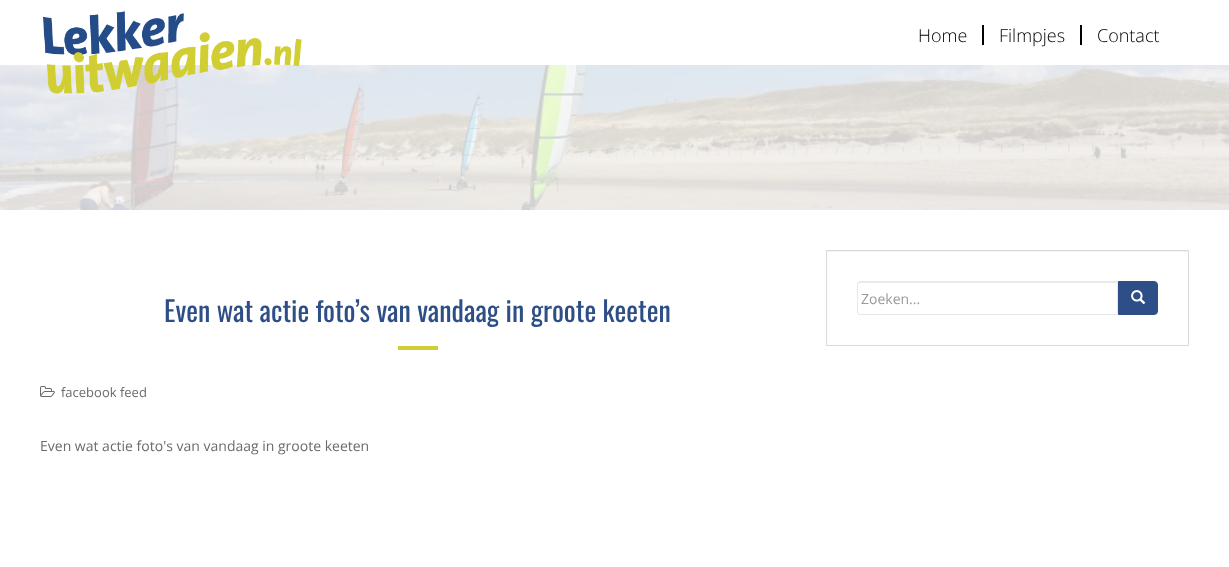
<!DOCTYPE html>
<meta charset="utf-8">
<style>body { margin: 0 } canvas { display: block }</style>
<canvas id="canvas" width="1229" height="567"></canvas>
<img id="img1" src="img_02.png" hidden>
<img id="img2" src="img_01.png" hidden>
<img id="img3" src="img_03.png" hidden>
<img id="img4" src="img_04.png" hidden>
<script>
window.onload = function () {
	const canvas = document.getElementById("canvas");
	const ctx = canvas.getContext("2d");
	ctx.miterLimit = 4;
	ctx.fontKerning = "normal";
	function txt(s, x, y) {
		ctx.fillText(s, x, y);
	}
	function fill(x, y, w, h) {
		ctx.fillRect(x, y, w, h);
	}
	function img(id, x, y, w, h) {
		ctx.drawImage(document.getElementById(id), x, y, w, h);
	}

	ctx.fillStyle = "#FFFFFF";
	fill(0, 0, 1229, 567);
	img("img1", 0, 65, 1229, 145);
	img("img2", 43, 11, 259, 83);
	ctx.fillStyle = "#000000";
	fill(982, 25, 2, 20);
	fill(1080, 25, 2, 20);
	ctx.fillStyle = "#D1CE33";
	fill(398, 346, 40, 4);
	img("img3", 40, 386, 15, 11);
	ctx.fillStyle = "#F2F2F2";
	fill(827, 251, 361, 1);
	ctx.strokeStyle = "#DADADA";
	ctx.strokeRect(826.5, 250.5, 362, 95);
	ctx.fillStyle = "#ECECEC";
	ctx.beginPath();
	ctx.moveTo(860, 283);
	ctx.lineTo(1117, 283);
	ctx.lineTo(1117, 282);
	ctx.lineTo(860, 282);
	ctx.bezierCurveTo(858, 282, 858, 284, 858, 285);
	ctx.bezierCurveTo(858, 284, 859, 283, 860, 283);
	ctx.closePath();
	ctx.fill();
	ctx.beginPath();
	ctx.roundRect(857.5, 281.5, 260, 33, [2.5, 0, 0, 2.5]);
	ctx.strokeStyle = "#E8E8E8";
	ctx.stroke();
	ctx.fillStyle = "#2E4E87";
	ctx.beginPath();
	ctx.roundRect(1118.5, 281.5, 39, 33, [0, 3.5, 3.5, 0]);
	ctx.fill();
	ctx.strokeStyle = "#2E4E87";
	ctx.stroke();
	img("img4", 1131, 290, 15, 14);
	ctx.font = "300 18px Open Sans";
	ctx.fillStyle = "#000000";
	txt("Home", 918, 42);
	txt("Filmpjes", 999, 42);
	txt("Contact", 1097, 42);
	ctx.font = "28px Oswald";
	ctx.fillStyle = "#2E4E87";
	txt("Even wat actie foto’s van vandaag in groote keeten", 164, 322);
	ctx.font = "13px Open Sans";
	ctx.fillStyle = "#6B6B6B";
	txt("facebook feed", 61, 397);
	ctx.font = "14px Open Sans";
	txt("Even wat actie foto's van vandaag in groote keeten", 40, 451);
	ctx.fillStyle = "#999999";
	txt("Zoeken...", 861, 304);
};
</script>
